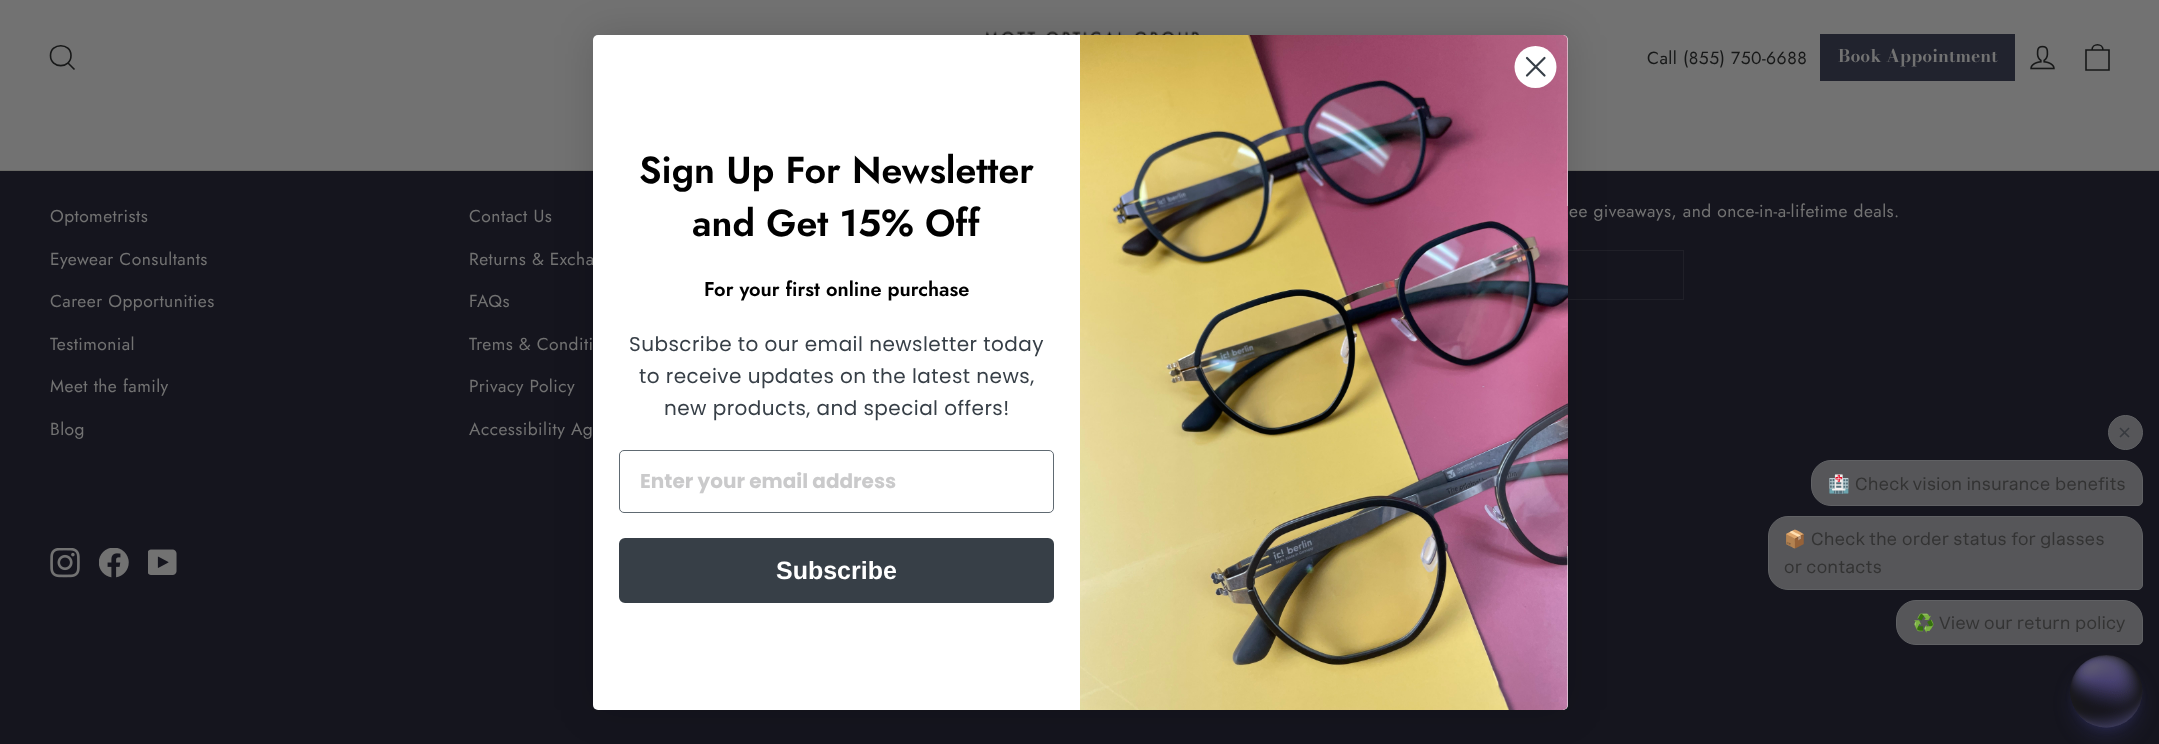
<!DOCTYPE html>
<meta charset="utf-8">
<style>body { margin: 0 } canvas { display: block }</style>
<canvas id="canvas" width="2159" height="744"></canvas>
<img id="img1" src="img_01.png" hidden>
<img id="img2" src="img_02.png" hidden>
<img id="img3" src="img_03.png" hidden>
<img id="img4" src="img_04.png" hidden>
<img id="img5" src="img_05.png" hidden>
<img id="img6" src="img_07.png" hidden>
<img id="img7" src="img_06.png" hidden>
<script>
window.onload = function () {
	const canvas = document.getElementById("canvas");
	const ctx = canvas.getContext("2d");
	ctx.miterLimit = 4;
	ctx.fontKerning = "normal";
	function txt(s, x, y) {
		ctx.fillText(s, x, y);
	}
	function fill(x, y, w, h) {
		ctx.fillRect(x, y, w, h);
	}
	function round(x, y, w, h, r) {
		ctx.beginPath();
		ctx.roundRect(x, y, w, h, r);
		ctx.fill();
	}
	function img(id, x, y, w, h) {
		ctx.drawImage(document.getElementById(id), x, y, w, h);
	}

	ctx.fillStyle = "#15151E";
	fill(0, 0, 2159, 744);
	ctx.fillStyle = "#727272";
	fill(0, 0, 2159, 170);
	ctx.fillStyle = "#696966";
	fill(0, 170, 2159, 1);
	img("img1", 985, 31, 214, 4);
	ctx.beginPath();
	ctx.moveTo(71, 55.5);
	ctx.bezierCurveTo(71, 69, 50.5, 69, 50.5, 55.5);
	ctx.bezierCurveTo(50.5, 42.5, 71, 42.5, 71, 55.5);
	ctx.closePath();
	ctx.moveTo(74.5, 69.5);
	ctx.lineTo(68, 63);
	ctx.strokeStyle = "#171818";
	ctx.lineWidth = 1.6;
	ctx.stroke();
	ctx.fillStyle = "#21232E";
	fill(1820, 34, 195, 47);
	img("img2", 2030, 45, 25, 25);
	ctx.beginPath();
	ctx.moveTo(2086, 50);
	ctx.lineTo(2109, 50);
	ctx.lineTo(2109, 70);
	ctx.lineTo(2086, 70);
	ctx.closePath();
	ctx.moveTo(2092, 50);
	ctx.bezierCurveTo(2092, 43, 2103, 43, 2103, 50);
	ctx.stroke();
	ctx.strokeStyle = "#202028";
	ctx.lineWidth = 1;
	ctx.strokeRect(1309.5, 250.5, 374, 49);
	img("img3", 50, 548, 30, 30);
	img("img4", 99, 548, 30, 30);
	img("img5", 148, 549, 29, 26);
	ctx.fillStyle = "rgba(0, 0, 0, 0.15)";
	ctx.filter = "blur(19px)";
	ctx.beginPath();
	ctx.roundRect(593, 35, 975, 675, 5);
	ctx.fill();
	ctx.filter = "none";
	ctx.fillStyle = "rgba(114, 114, 114, 0.7)";
	ctx.beginPath();
	ctx.arc(2125.5, 432.5, 17, 0, Math.PI * 2);
	ctx.fill();
	ctx.strokeStyle = "#606164";
	ctx.stroke();
	ctx.fillStyle = "#565659";
	ctx.beginPath();
	ctx.roundRect(1811.5, 460.5, 331, 45, [19.5, 19.5, 4.5, 19.5]);
	ctx.fill();
	ctx.stroke();
	ctx.beginPath();
	ctx.roundRect(1768.5, 516.5, 374, 73, [19.5, 19.5, 4.5, 19.5]);
	ctx.fill();
	ctx.stroke();
	ctx.beginPath();
	ctx.roundRect(1896.5, 600.5, 246, 44, [19.5, 19.5, 4.5, 19.5]);
	ctx.fill();
	ctx.stroke();
	ctx.fillStyle = "rgba(52, 53, 108, 0.4)";
	ctx.filter = "blur(4px)";
	ctx.beginPath();
	ctx.roundRect(2075, 665, 63, 63, 31.5);
	ctx.fill();
	ctx.filter = "none";
	ctx.filter = "blur(9.5px)";
	ctx.beginPath();
	ctx.roundRect(2074, 671, 65, 65, 32.5);
	ctx.fill();
	ctx.filter = "none";
	img("img6", 2070, 655, 73, 73);
	ctx.letterSpacing = "0.45px";
	ctx.font = "17.5px Jost";
	ctx.fillStyle = "#171818";
	txt("Call (855) 750-6688", 1647, 64);
	ctx.letterSpacing = "0px";
	ctx.font = "bold 17.5px Bodoni Moda";
	ctx.fillStyle = "#727272";
	txt("Book Appointment", 1838, 62);
	ctx.letterSpacing = "0.45px";
	ctx.font = "17.4px Jost";
	txt("Optometrists", 50, 222);
	txt("Eyewear Consultants", 50, 265);
	txt("Career Opportunities", 50, 307);
	txt("Testimonial", 50, 350);
	txt("Meet the family", 50, 392);
	txt("Blog", 50, 435);
	txt("Contact Us", 469, 222);
	txt("Returns & Excha", 469, 265);
	txt("FAQs", 469, 307);
	txt("Trems & Conditi", 469, 350);
	txt("Privacy Policy", 469, 392);
	txt("Accessibility Ag", 469, 435);
	txt("ee giveaways, and once-in-a-lifetime deals.", 1569, 217);
	ctx.fillStyle = "#FFFFFF";
	round(593, 35, 975, 675, 5);
	ctx.letterSpacing = "0px";
	ctx.font = "600 37.5px Jost";
	ctx.fillStyle = "#000000";
	txt("Sign Up For Newsletter", 639, 183);
	txt("and Get 15% Off", 692, 236);
	ctx.font = "600 20px Jost";
	txt("For your first online purchase", 704, 296);
	ctx.letterSpacing = "0.45px";
	ctx.font = "20px Poppins";
	ctx.fillStyle = "#373F47";
	txt("Subscribe to our email newsletter today", 629, 351);
	txt("to receive updates on the latest news,", 639, 383);
	txt("new products, and special offers!", 664, 415);
	ctx.beginPath();
	ctx.roundRect(619.5, 450.5, 434, 62, 4.5);
	ctx.strokeStyle = "#606A72";
	ctx.stroke();
	ctx.letterSpacing = "0px";
	ctx.font = "bold 20px Poppins";
	ctx.fillStyle = "#CACACB";
	txt("Enter your email address", 640, 488);
	ctx.fillStyle = "#373F47";
	ctx.beginPath();
	ctx.roundRect(622, 541, 429, 59, 3);
	ctx.fill();
	ctx.strokeStyle = "#373F47";
	ctx.lineWidth = 6;
	ctx.stroke();
	ctx.font = "bold 25px Liberation Sans";
	ctx.fillStyle = "#FFFFFF";
	txt("Subscribe", 776, 579);
	img("img7", 1080, 35, 488, 675);
	ctx.beginPath();
	ctx.arc(1535.5, 67, 21, 0, Math.PI * 2);
	ctx.fill();
	ctx.beginPath();
	ctx.moveTo(1527, 58);
	ctx.lineTo(1544.5, 75.5);
	ctx.moveTo(1527, 75.5);
	ctx.lineTo(1544.5, 58);
	ctx.closePath();
	ctx.lineWidth = 2.2;
	ctx.lineCap = "round";
	ctx.lineJoin = "round";
	ctx.stroke();
	ctx.letterSpacing = "0.45px";
	ctx.font = "22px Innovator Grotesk";
	ctx.fillStyle = "#373A3F";
	txt("×", 2118, 439);
	ctx.font = "17.5px Noto Color Emoji";
	ctx.fillStyle = "#333333";
	txt("🏥", 1828, 490);
	ctx.font = "17.5px Innovator Grotesk";
	txt("Check vision insurance benefits", 1855, 490);
	ctx.font = "17.5px Noto Color Emoji";
	txt("📦", 1784, 545);
	ctx.font = "17.5px Innovator Grotesk";
	txt("Check the order status for glasses", 1811, 545);
	txt("or contacts", 1784, 573);
	ctx.font = "17.5px Noto Color Emoji";
	txt("♻️", 1913, 629);
	ctx.font = "17.5px Innovator Grotesk";
	txt("View our return policy", 1939, 629);
};
</script>
